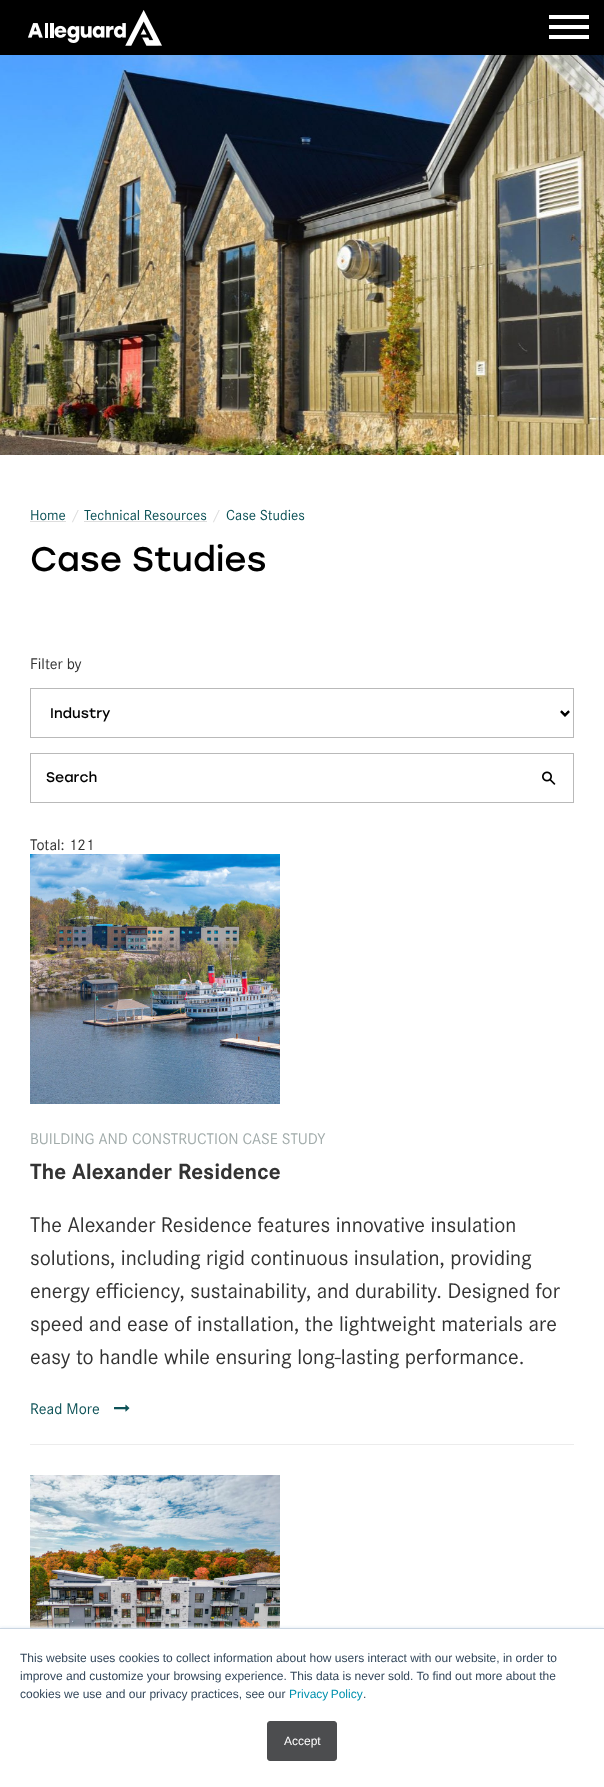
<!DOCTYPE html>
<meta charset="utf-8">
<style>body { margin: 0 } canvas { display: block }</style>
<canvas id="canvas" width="604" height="1787"></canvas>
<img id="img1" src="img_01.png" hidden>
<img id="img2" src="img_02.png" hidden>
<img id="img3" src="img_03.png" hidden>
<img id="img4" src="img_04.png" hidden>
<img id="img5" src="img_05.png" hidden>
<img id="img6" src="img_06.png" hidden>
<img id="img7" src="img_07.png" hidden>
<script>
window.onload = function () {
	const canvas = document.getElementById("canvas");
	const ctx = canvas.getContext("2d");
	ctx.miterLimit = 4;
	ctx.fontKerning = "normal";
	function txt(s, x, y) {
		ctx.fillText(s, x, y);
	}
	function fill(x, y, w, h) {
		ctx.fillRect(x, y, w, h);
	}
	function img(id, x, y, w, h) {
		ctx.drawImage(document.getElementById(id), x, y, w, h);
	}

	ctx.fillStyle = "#FFFFFF";
	fill(0, 0, 604, 1787);
	ctx.fillStyle = "#000000";
	fill(0, 0, 604, 55);
	img("img1", 28, 10, 134, 36);
	ctx.fillStyle = "#FFFFFF";
	fill(549, 15, 40, 4);
	fill(549, 25, 40, 4);
	fill(549, 35, 40, 4);
	img("img2", 0, 55, 604, 400);
	ctx.fillStyle = "#DDDDDD";
	fill(30, 521, 36, 1);
	fill(84, 521, 123, 1);
	img("img3", 560, 710, 10, 7);
	ctx.strokeStyle = "#B9B9B9";
	ctx.strokeRect(30.5, 688.5, 543, 49);
	ctx.beginPath();
	ctx.moveTo(561, 711.5);
	ctx.lineTo(565, 715.5);
	ctx.lineTo(569, 711.5);
	ctx.strokeStyle = "#000000";
	ctx.lineWidth = 2;
	ctx.stroke();
	ctx.strokeStyle = "#B9B9B9";
	ctx.lineWidth = 1;
	ctx.strokeRect(30.5, 753.5, 543, 49);
	img("img4", 542, 771, 14, 14);
	ctx.fillStyle = "#ECECEC";
	fill(30, 1444, 544, 1);
	img("img5", 30, 854, 250, 250);
	img("img6", 114, 1404, 16, 8);
	img("img7", 30, 1475, 250, 153);
	ctx.fillStyle = "#EAF0F6";
	ctx.filter = "blur(1.5px)";
	ctx.beginPath();
	ctx.rect(0, 1627, 604, 159);
	ctx.fill();
	ctx.filter = "none";
	ctx.fillStyle = "#FFFFFF";
	fill(0, 1629, 604, 158);
	ctx.fillStyle = "#CBD6E2";
	fill(0, 1628, 604, 1);
	ctx.fillStyle = "#4C4D4F";
	ctx.beginPath();
	ctx.roundRect(267.5, 1721.5, 69, 39, 2.5);
	ctx.fill();
	ctx.strokeStyle = "#4C4D4F";
	ctx.stroke();
	ctx.font = "15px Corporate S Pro";
	ctx.fillStyle = "#0D5257";
	txt("Home", 30, 520);
	ctx.fillStyle = "#DDDDDD";
	txt("/", 71, 520);
	ctx.fillStyle = "#0D5257";
	txt("Technical Resources", 84, 520);
	ctx.fillStyle = "#DDDDDD";
	txt("/", 212, 520);
	ctx.fillStyle = "#0D5257";
	txt("Case Studies", 226, 520);
	ctx.font = "34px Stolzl";
	ctx.fillStyle = "#000000";
	txt("Case Studies", 30, 571);
	ctx.font = "16px Corporate S Pro";
	ctx.fillStyle = "#333333";
	txt("Filter by", 30, 669);
	ctx.font = "14px Stolzl";
	ctx.fillStyle = "#000000";
	txt("Industry", 50, 718);
	txt("Search", 46, 782);
	ctx.font = "16px Corporate S Pro";
	ctx.fillStyle = "#333333";
	txt("Total: 121", 30, 850);
	ctx.fillStyle = "#A2ACAB";
	txt("BUILDING AND CONSTRUCTION CASE STUDY", 30, 1144);
	ctx.font = "bold 23px Corporate S Pro";
	ctx.fillStyle = "#333333";
	txt("The Alexander Residence", 30, 1179);
	ctx.font = "22px Corporate S Pro";
	txt("The Alexander Residence features innovative insulation", 30, 1232);
	txt("solutions, including rigid continuous insulation, providing", 30, 1265);
	txt("energy efficiency, sustainability, and durability. Designed for", 30, 1298);
	txt("speed and ease of installation, the lightweight materials are", 30, 1331);
	txt("easy to handle while ensuring long-lasting performance.", 30, 1364);
	ctx.font = "16px Corporate S Pro";
	ctx.fillStyle = "#0D5257";
	txt("Read More", 30, 1414);
	ctx.font = "12px Liberation Sans";
	ctx.fillStyle = "#33475B";
	txt("This website uses cookies to collect information about how users interact with our website, in order to", 20, 1662);
	txt("improve and customize your browsing experience. This data is never sold. To find out more about the", 20, 1680);
	txt("cookies we use and our privacy practices, see our", 20, 1698);
	ctx.wordSpacing = "-1px";
	ctx.fillStyle = "#0091AE";
	txt("Privacy Policy", 289, 1698);
	ctx.wordSpacing = "0px";
	ctx.fillStyle = "#33475B";
	txt(".", 363, 1698);
	ctx.fillStyle = "#FFFFFF";
	txt("Accept", 284, 1745);
};
</script>
